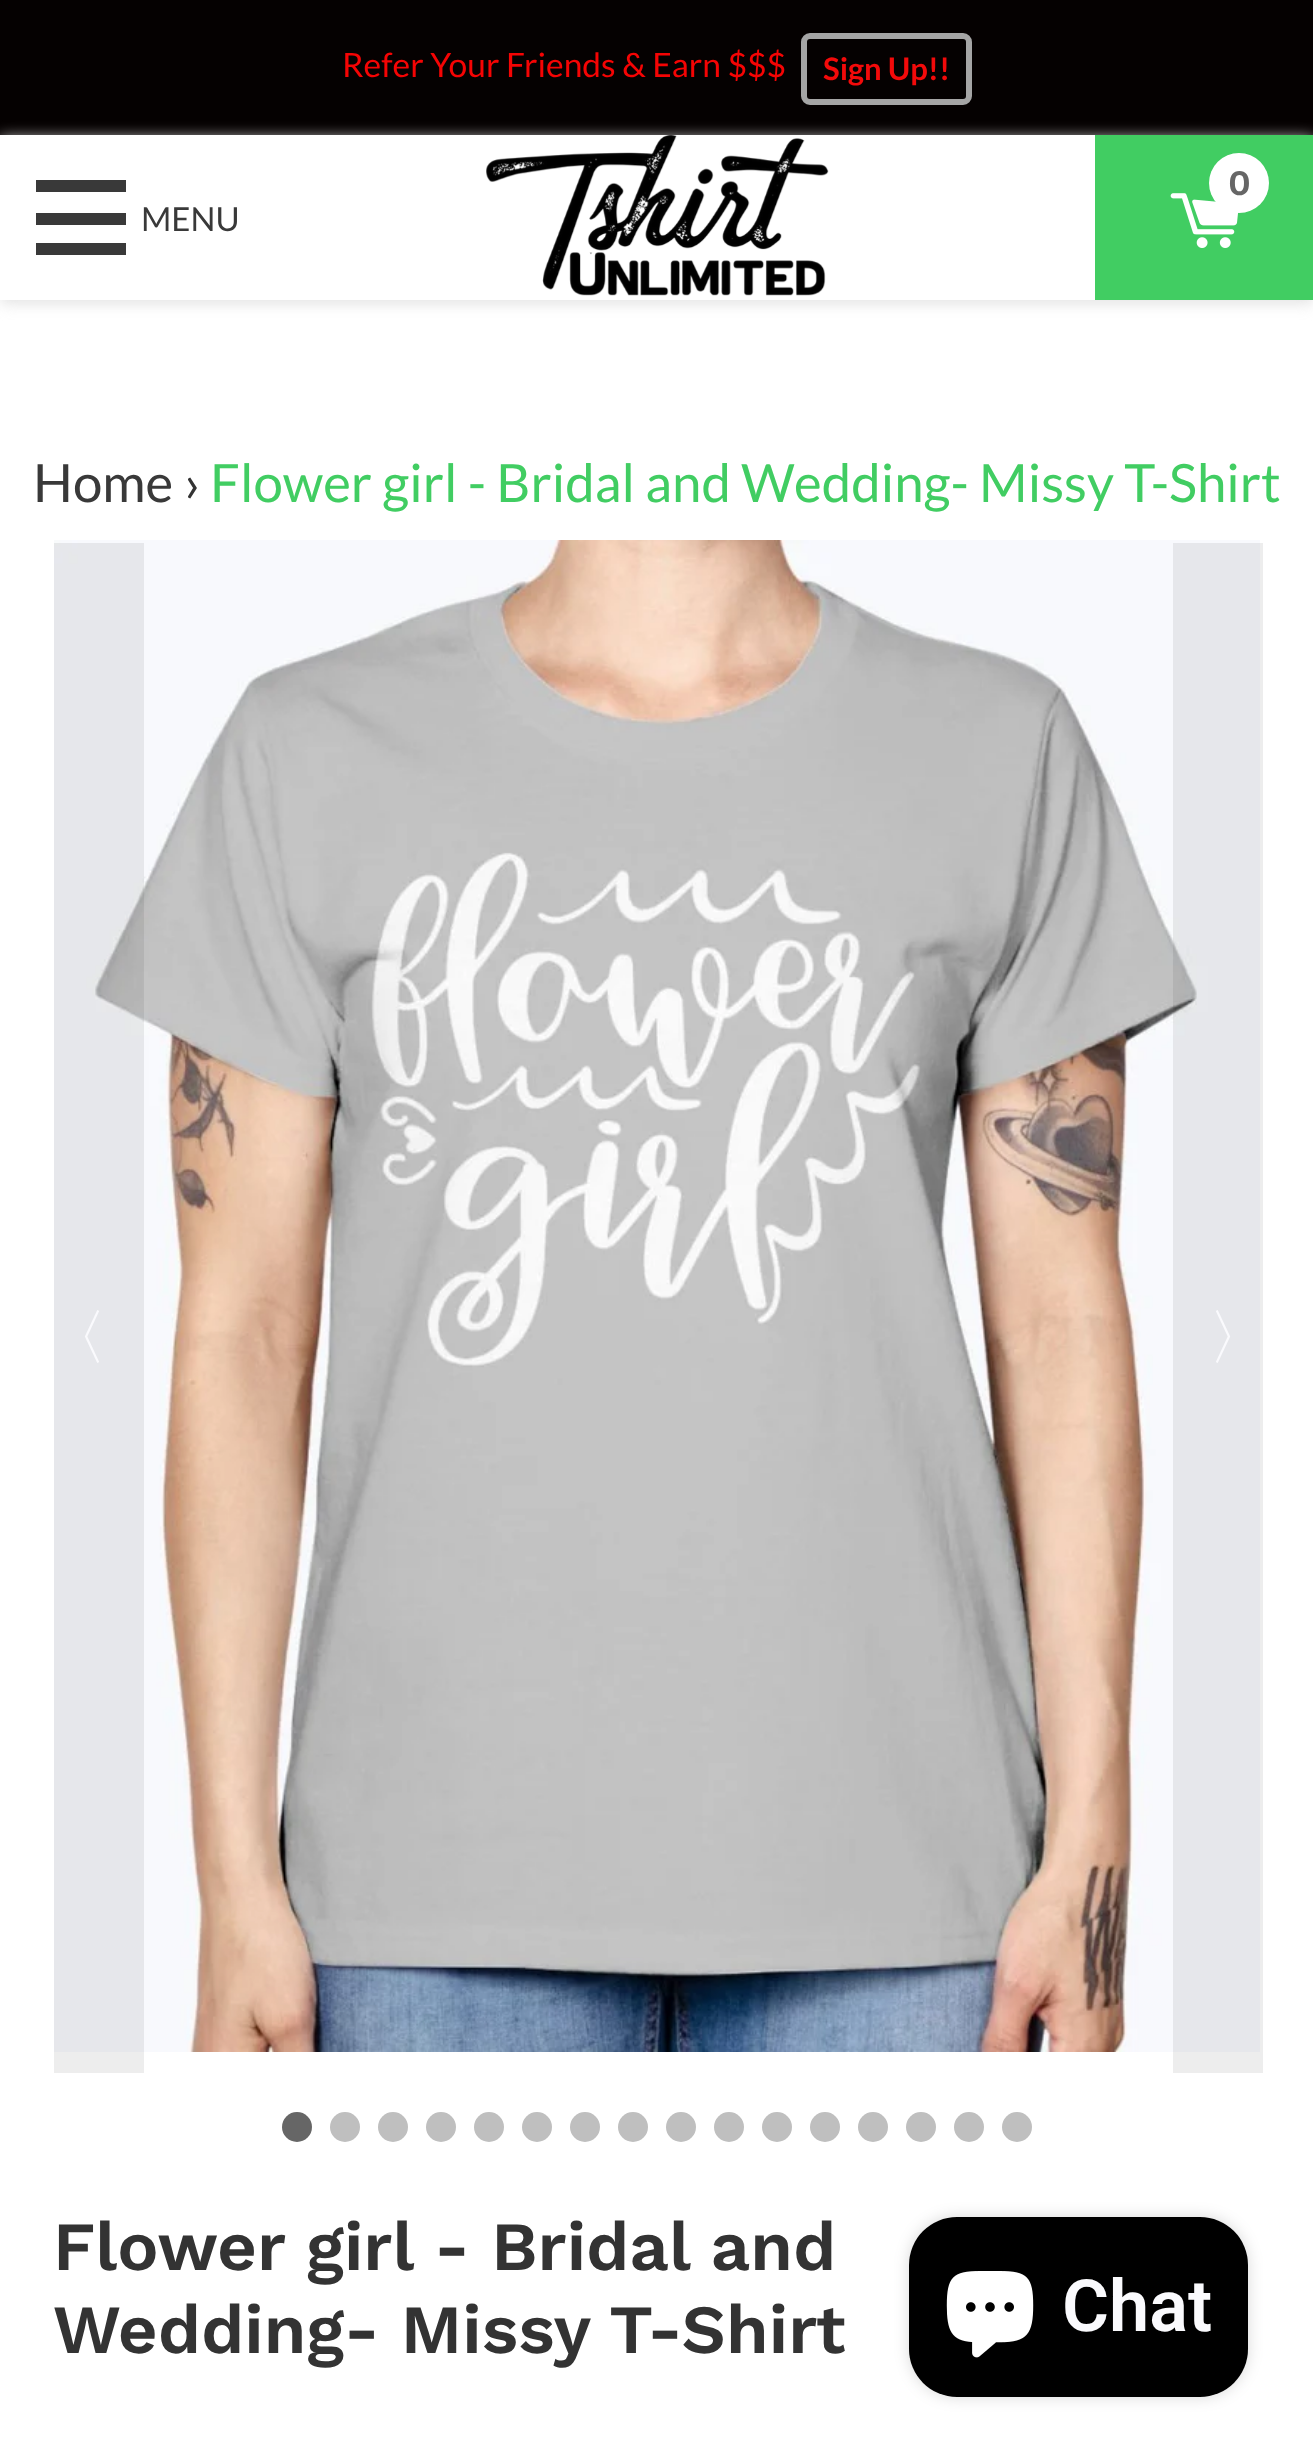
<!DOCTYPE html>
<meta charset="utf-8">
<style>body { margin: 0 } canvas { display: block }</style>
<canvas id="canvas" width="1313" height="2460"></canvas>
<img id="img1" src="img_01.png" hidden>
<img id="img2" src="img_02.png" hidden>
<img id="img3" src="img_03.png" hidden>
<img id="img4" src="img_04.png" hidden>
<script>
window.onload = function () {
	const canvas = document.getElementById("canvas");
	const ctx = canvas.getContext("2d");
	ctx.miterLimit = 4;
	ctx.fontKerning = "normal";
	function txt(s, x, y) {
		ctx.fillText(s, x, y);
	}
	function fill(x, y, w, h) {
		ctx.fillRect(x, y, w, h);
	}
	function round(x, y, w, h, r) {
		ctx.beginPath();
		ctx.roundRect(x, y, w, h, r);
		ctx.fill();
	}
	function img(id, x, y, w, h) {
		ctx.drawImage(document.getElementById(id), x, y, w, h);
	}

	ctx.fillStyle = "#FFFFFF";
	fill(0, 0, 1313, 2460);
	ctx.fillStyle = "#050101";
	fill(0, 0, 1313, 135);
	ctx.beginPath();
	ctx.roundRect(804, 36, 165, 66, 6);
	ctx.strokeStyle = "#A5A5A5";
	ctx.lineWidth = 6;
	ctx.stroke();
	ctx.save();
	ctx.beginPath();
	ctx.moveTo(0, 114);
	ctx.lineTo(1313, 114);
	ctx.lineTo(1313, 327);
	ctx.lineTo(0, 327);
	ctx.closePath();
	ctx.moveTo(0, 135);
	ctx.lineTo(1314, 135);
	ctx.lineTo(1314, 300);
	ctx.lineTo(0, 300);
	ctx.closePath();
	ctx.clip("evenodd");
	ctx.fillStyle = "#E0E0E0";
	ctx.filter = "blur(7.5px)";
	ctx.beginPath();
	ctx.rect(0, 138, 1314, 165);
	ctx.fill();
	ctx.filter = "none";
	ctx.restore();
	img("img1", 486, 135, 343, 161);
	ctx.fillStyle = "#41CD62";
	fill(1095, 135, 218, 165);
	img("img2", 1170, 193, 69, 55);
	ctx.fillStyle = "#FFFFFF";
	ctx.beginPath();
	ctx.arc(1239, 183, 30, 0, Math.PI * 2);
	ctx.fill();
	ctx.fillStyle = "#393939";
	fill(36, 180, 90, 12);
	fill(36, 213, 90, 12);
	fill(36, 243, 90, 12);
	img("img3", 54, 540, 1206, 1512);
	ctx.fillStyle = "rgba(0, 0, 0, 0.07)";
	fill(54, 543, 90, 1530);
	fill(1173, 543, 90, 1530);
	ctx.fillStyle = "#666666";
	ctx.beginPath();
	ctx.arc(297, 2127, 15, 0, Math.PI * 2);
	ctx.fill();
	ctx.fillStyle = "#BFBFBF";
	ctx.beginPath();
	ctx.arc(345, 2127, 15, 0, Math.PI * 2);
	ctx.fill();
	ctx.beginPath();
	ctx.arc(393, 2127, 15, 0, Math.PI * 2);
	ctx.fill();
	ctx.beginPath();
	ctx.arc(441, 2127, 15, 0, Math.PI * 2);
	ctx.fill();
	ctx.beginPath();
	ctx.arc(489, 2127, 15, 0, Math.PI * 2);
	ctx.fill();
	ctx.beginPath();
	ctx.arc(537, 2127, 15, 0, Math.PI * 2);
	ctx.fill();
	ctx.beginPath();
	ctx.arc(585, 2127, 15, 0, Math.PI * 2);
	ctx.fill();
	ctx.beginPath();
	ctx.arc(633, 2127, 15, 0, Math.PI * 2);
	ctx.fill();
	ctx.beginPath();
	ctx.arc(681, 2127, 15, 0, Math.PI * 2);
	ctx.fill();
	ctx.beginPath();
	ctx.arc(729, 2127, 15, 0, Math.PI * 2);
	ctx.fill();
	ctx.beginPath();
	ctx.arc(777, 2127, 15, 0, Math.PI * 2);
	ctx.fill();
	ctx.beginPath();
	ctx.arc(825, 2127, 15, 0, Math.PI * 2);
	ctx.fill();
	ctx.beginPath();
	ctx.arc(873, 2127, 15, 0, Math.PI * 2);
	ctx.fill();
	ctx.beginPath();
	ctx.arc(921, 2127, 15, 0, Math.PI * 2);
	ctx.fill();
	ctx.beginPath();
	ctx.arc(969, 2127, 15, 0, Math.PI * 2);
	ctx.fill();
	ctx.beginPath();
	ctx.arc(1017, 2127, 15, 0, Math.PI * 2);
	ctx.fill();
	ctx.fillStyle = "rgba(0, 0, 0, 0.15)";
	ctx.filter = "blur(7.5px)";
	ctx.beginPath();
	ctx.roundRect(909, 2217, 339, 180, 48);
	ctx.fill();
	ctx.filter = "none";
	ctx.fillStyle = "#000000";
	round(909, 2217, 339, 180, 48);
	img("img4", 946, 2271, 88, 87);
	ctx.font = "33.6px Lato";
	ctx.fillStyle = "#F50404";
	txt("Refer Your Friends & Earn $$$", 342, 77);
	ctx.font = "bold 31px Lato";
	ctx.fillStyle = "#F30A0A";
	txt("Sign Up!!", 823, 80);
	ctx.font = "600 36px Work Sans";
	ctx.fillStyle = "#666666";
	txt("0", 1228, 195);
	ctx.font = "33px Lato";
	ctx.fillStyle = "#393939";
	txt("MENU", 141, 231);
	ctx.font = "52.8px Lato";
	txt("Home", 33, 502);
	ctx.fillStyle = "#333333";
	txt("›", 184, 502);
	ctx.fillStyle = "#41CD62";
	txt("Flower girl - Bridal and Wedding- Missy T-Shirt", 210, 502);
	ctx.font = "500 60px WenQuanYi Zen Hei";
	ctx.fillStyle = "#FAFAFD";
	txt("〈", 47, 1358);
	txt("〉", 1208, 1358);
	ctx.font = "600 69px Work Sans";
	ctx.fillStyle = "#333333";
	txt("Flower girl - Bridal and", 53, 2270);
	txt("Wedding- Missy T-Shirt", 53, 2353);
	ctx.font = "600 72px Roboto";
	ctx.fillStyle = "#FAFAFD";
	txt("Chat", 1062, 2331);
};
</script>
